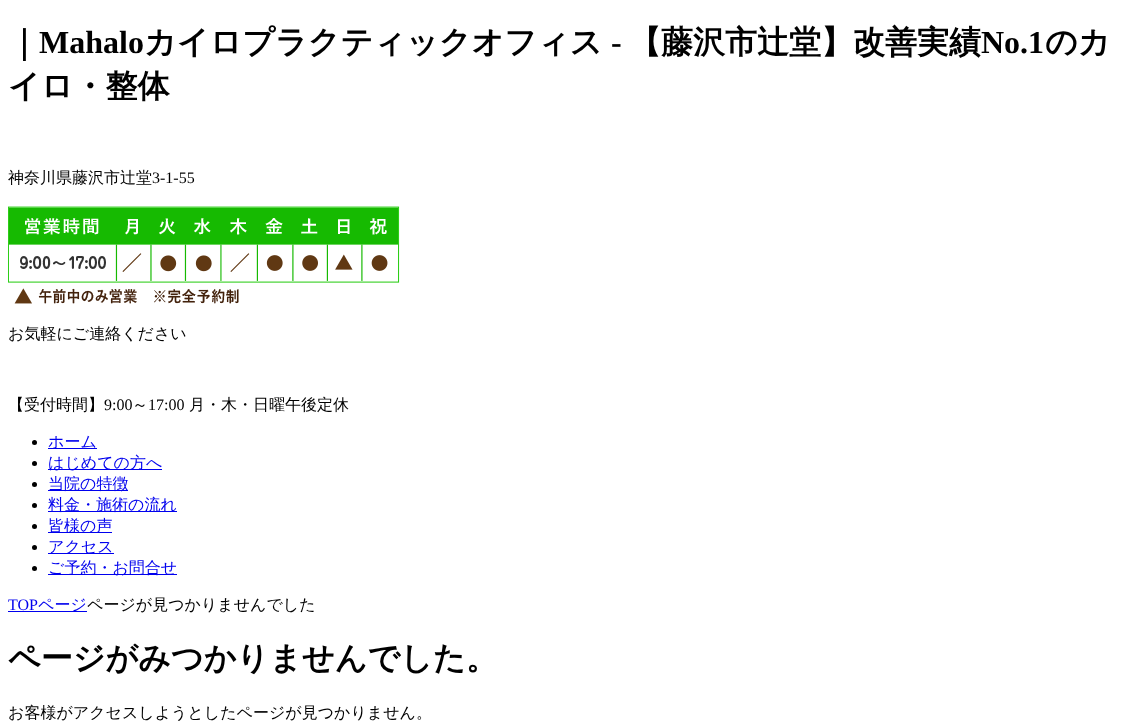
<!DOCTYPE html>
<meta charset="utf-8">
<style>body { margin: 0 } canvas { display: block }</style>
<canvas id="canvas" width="1124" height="721"></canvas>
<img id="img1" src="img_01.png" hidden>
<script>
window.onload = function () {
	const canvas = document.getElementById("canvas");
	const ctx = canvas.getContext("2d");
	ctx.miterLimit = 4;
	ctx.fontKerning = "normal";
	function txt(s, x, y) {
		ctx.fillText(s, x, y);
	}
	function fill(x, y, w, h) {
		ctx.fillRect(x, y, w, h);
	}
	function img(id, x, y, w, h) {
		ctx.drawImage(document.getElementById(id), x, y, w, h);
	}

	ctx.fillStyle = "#FFFFFF";
	fill(0, 0, 1124, 721);
	img("img1", 8, 206, 392, 98);
	ctx.fillStyle = "#000000";
	ctx.beginPath();
	ctx.arc(34.5, 442.5, 2.5, 0, Math.PI * 2);
	ctx.fill();
	ctx.fillStyle = "#0000EE";
	fill(48, 448, 49, 1);
	ctx.fillStyle = "#000000";
	ctx.beginPath();
	ctx.arc(34.5, 463.5, 2.5, 0, Math.PI * 2);
	ctx.fill();
	ctx.fillStyle = "#0000EE";
	fill(48, 469, 114, 1);
	ctx.fillStyle = "#000000";
	ctx.beginPath();
	ctx.arc(34.5, 484.5, 2.5, 0, Math.PI * 2);
	ctx.fill();
	ctx.fillStyle = "#0000EE";
	fill(48, 490, 80, 1);
	ctx.fillStyle = "#000000";
	ctx.beginPath();
	ctx.arc(34.5, 505.5, 2.5, 0, Math.PI * 2);
	ctx.fill();
	ctx.fillStyle = "#0000EE";
	fill(48, 511, 129, 1);
	ctx.fillStyle = "#000000";
	ctx.beginPath();
	ctx.arc(34.5, 526.5, 2.5, 0, Math.PI * 2);
	ctx.fill();
	ctx.fillStyle = "#0000EE";
	fill(48, 532, 64, 1);
	ctx.fillStyle = "#000000";
	ctx.beginPath();
	ctx.arc(34.5, 547.5, 2.5, 0, Math.PI * 2);
	ctx.fill();
	ctx.fillStyle = "#0000EE";
	fill(48, 553, 66, 1);
	ctx.fillStyle = "#000000";
	ctx.beginPath();
	ctx.arc(34.5, 568.5, 2.5, 0, Math.PI * 2);
	ctx.fill();
	ctx.fillStyle = "#0000EE";
	fill(48, 574, 129, 1);
	fill(8, 611, 79, 1);
	ctx.font = "bold 32px WenQuanYi Zen Hei";
	ctx.fillStyle = "#000000";
	txt("｜", 8, 53);
	ctx.font = "bold 32px Liberation Serif";
	txt("Mahalo", 39, 53);
	ctx.font = "bold 32px WenQuanYi Zen Hei";
	txt("カイロプラクティックオフィス", 144, 53);
	ctx.font = "bold 32px Liberation Serif";
	txt("-", 611, 53);
	ctx.font = "bold 32px WenQuanYi Zen Hei";
	txt("【藤沢市辻堂】改善実績", 629, 53);
	ctx.font = "bold 32px Liberation Serif";
	txt("No.1", 981, 53);
	ctx.font = "bold 32px WenQuanYi Zen Hei";
	txt("のカ", 1045, 53);
	txt("イロ・整体", 8, 97);
	ctx.font = "500 16px WenQuanYi Zen Hei";
	txt("神奈川県藤沢市辻堂", 8, 183);
	ctx.font = "16px Liberation Serif";
	txt("3-1-55", 152, 183);
	ctx.font = "500 16px WenQuanYi Zen Hei";
	txt("お気軽にご連絡ください", 8, 339);
	txt("【受付時間】", 8, 410);
	ctx.font = "16px Liberation Serif";
	txt("9:00", 104, 410);
	ctx.font = "500 16px WenQuanYi Zen Hei";
	txt("～", 132, 410);
	ctx.font = "16px Liberation Serif";
	txt("17:00", 148, 410);
	ctx.font = "500 16px WenQuanYi Zen Hei";
	txt("月・木・日曜午後定休", 189, 410);
	ctx.fillStyle = "#0000EE";
	txt("ホーム", 48, 447);
	txt("はじめての方へ", 48, 468);
	txt("当院の特徴", 48, 489);
	txt("料金・施術の流れ", 48, 510);
	txt("皆様の声", 48, 531);
	txt("アクセス", 48, 552);
	txt("ご予約・お問合せ", 48, 573);
	ctx.font = "16px Liberation Serif";
	txt("TOP", 8, 610);
	ctx.font = "500 16px WenQuanYi Zen Hei";
	txt("ページ", 38, 610);
	ctx.fillStyle = "#000000";
	txt("ページが見つかりませんでした", 87, 610);
	ctx.font = "bold 32px WenQuanYi Zen Hei";
	txt("ページがみつかりませんでした。", 8, 669);
	ctx.font = "500 16px WenQuanYi Zen Hei";
	txt("お客様がアクセスしようとしたページが見つかりません。", 8, 718);
};
</script>
